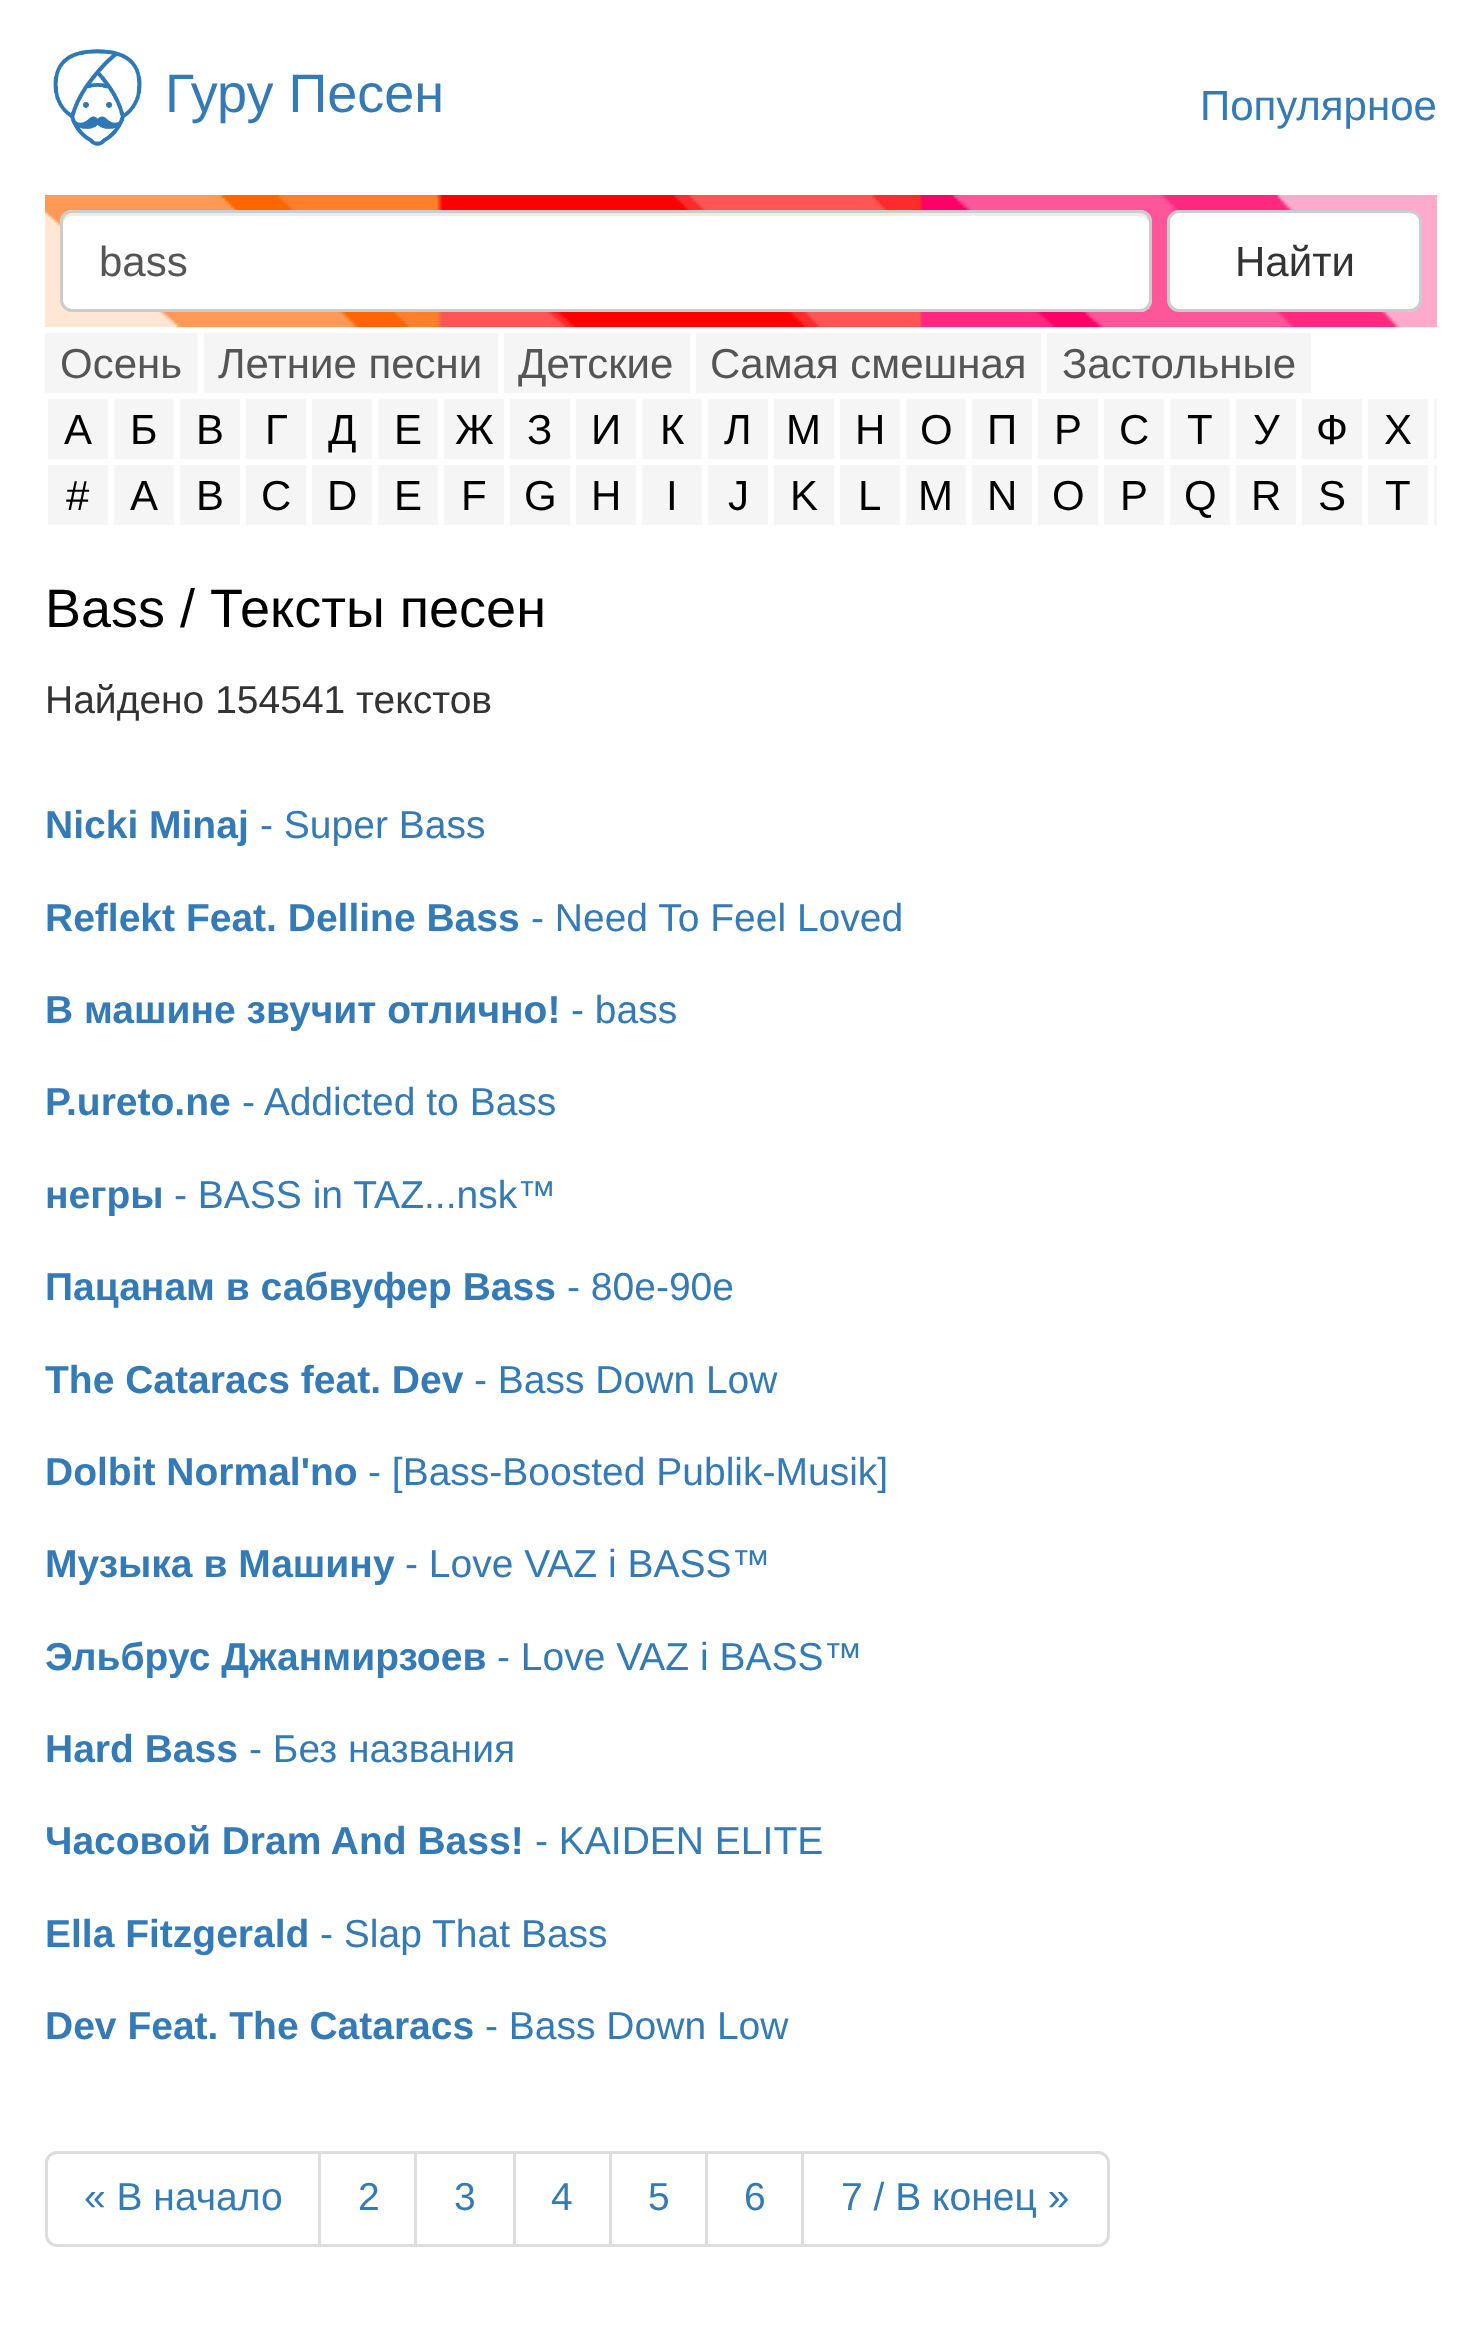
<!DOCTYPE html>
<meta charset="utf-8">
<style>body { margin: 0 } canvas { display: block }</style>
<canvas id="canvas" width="1481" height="2340"></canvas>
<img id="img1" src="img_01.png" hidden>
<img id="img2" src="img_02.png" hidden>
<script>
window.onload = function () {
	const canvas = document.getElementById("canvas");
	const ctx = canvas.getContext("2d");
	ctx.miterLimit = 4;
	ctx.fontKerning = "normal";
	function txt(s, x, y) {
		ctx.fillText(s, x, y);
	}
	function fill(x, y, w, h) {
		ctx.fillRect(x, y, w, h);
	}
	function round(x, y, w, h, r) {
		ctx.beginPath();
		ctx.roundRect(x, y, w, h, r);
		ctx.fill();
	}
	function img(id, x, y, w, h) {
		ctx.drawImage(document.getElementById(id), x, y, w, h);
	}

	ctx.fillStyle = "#FFFFFF";
	fill(0, 0, 1481, 2340);
	img("img1", 53, 49, 89, 97);
	img("img2", 45, 195, 1392, 132);
	round(60, 210, 1092, 102, 12);
	ctx.fillStyle = "#ECECEC";
	ctx.beginPath();
	ctx.moveTo(72, 216);
	ctx.lineTo(1140, 216);
	ctx.bezierCurveTo(1145, 216, 1149, 220, 1149, 225);
	ctx.lineTo(1149, 222);
	ctx.bezierCurveTo(1149, 217, 1145, 213, 1140, 213);
	ctx.lineTo(72, 213);
	ctx.bezierCurveTo(67, 213, 63, 217, 63, 222);
	ctx.lineTo(63, 225);
	ctx.bezierCurveTo(63, 220, 67, 216, 72, 216);
	ctx.closePath();
	ctx.fill();
	ctx.beginPath();
	ctx.roundRect(61.5, 211.5, 1089, 99, 10.5);
	ctx.strokeStyle = "#CCCCCC";
	ctx.lineWidth = 3;
	ctx.stroke();
	ctx.fillStyle = "#FFFFFF";
	ctx.beginPath();
	ctx.roundRect(1168.5, 211.5, 252, 99, 10.5);
	ctx.fill();
	ctx.stroke();
	ctx.fillStyle = "#F5F5F5";
	fill(45, 333, 153, 60);
	fill(204, 333, 294, 60);
	fill(504, 333, 186, 60);
	fill(696, 333, 345, 60);
	fill(1047, 333, 264, 60);
	fill(48, 399, 60, 60);
	fill(114, 399, 60, 60);
	fill(180, 399, 60, 60);
	fill(246, 399, 60, 60);
	fill(312, 399, 60, 60);
	fill(378, 399, 60, 60);
	fill(444, 399, 60, 60);
	fill(510, 399, 60, 60);
	fill(576, 399, 60, 60);
	fill(642, 399, 60, 60);
	fill(708, 399, 60, 60);
	fill(774, 399, 60, 60);
	fill(840, 399, 60, 60);
	fill(906, 399, 60, 60);
	fill(972, 399, 60, 60);
	fill(1038, 399, 60, 60);
	fill(1104, 399, 60, 60);
	fill(1170, 399, 60, 60);
	fill(1236, 399, 60, 60);
	fill(1302, 399, 60, 60);
	fill(1368, 399, 60, 60);
	fill(1434, 399, 3, 60);
	fill(48, 465, 60, 60);
	fill(114, 465, 60, 60);
	fill(180, 465, 60, 60);
	fill(246, 465, 60, 60);
	fill(312, 465, 60, 60);
	fill(378, 465, 60, 60);
	fill(444, 465, 60, 60);
	fill(510, 465, 60, 60);
	fill(576, 465, 60, 60);
	fill(642, 465, 60, 60);
	fill(708, 465, 60, 60);
	fill(774, 465, 60, 60);
	fill(840, 465, 60, 60);
	fill(906, 465, 60, 60);
	fill(972, 465, 60, 60);
	fill(1038, 465, 60, 60);
	fill(1104, 465, 60, 60);
	fill(1170, 465, 60, 60);
	fill(1236, 465, 60, 60);
	fill(1302, 465, 60, 60);
	fill(1368, 465, 60, 60);
	fill(1434, 465, 3, 60);
	ctx.beginPath();
	ctx.roundRect(46.5, 2152.5, 273, 93, [10.5, 0, 0, 10.5]);
	ctx.strokeStyle = "#DDDDDD";
	ctx.stroke();
	ctx.strokeRect(319.5, 2152.5, 96, 93);
	ctx.strokeRect(415.5, 2152.5, 99, 93);
	ctx.strokeRect(514.5, 2152.5, 96, 93);
	ctx.strokeRect(610.5, 2152.5, 96, 93);
	ctx.strokeRect(706.5, 2152.5, 96, 93);
	ctx.fillStyle = "#FFFFFF";
	ctx.beginPath();
	ctx.roundRect(802.5, 2152.5, 306, 93, [0, 10.5, 10.5, 0]);
	ctx.fill();
	ctx.stroke();
	ctx.font = "54px Liberation Sans";
	ctx.fillStyle = "#337AB7";
	txt("Гуру Песен", 165, 112);
	ctx.font = "42px Liberation Sans";
	txt("Популярное", 1200, 120);
	ctx.fillStyle = "#555555";
	txt("bass", 99, 276);
	ctx.fillStyle = "#333333";
	txt("Найти", 1235, 276);
	ctx.fillStyle = "#555555";
	txt("Осень", 60, 378);
	txt("Летние песни", 218, 378);
	txt("Детские", 518, 378);
	txt("Cамая смешная", 710, 378);
	txt("Застольные", 1062, 378);
	ctx.fillStyle = "#000000";
	txt("А", 64, 444);
	txt("Б", 130, 444);
	txt("В", 196, 444);
	txt("Г", 265, 444);
	txt("Д", 328, 444);
	txt("Е", 394, 444);
	txt("Ж", 455, 444);
	txt("З", 527, 444);
	txt("И", 591, 444);
	txt("К", 660, 444);
	txt("Л", 724, 444);
	txt("М", 786, 444);
	txt("Н", 855, 444);
	txt("О", 920, 444);
	txt("П", 987, 444);
	txt("Р", 1054, 444);
	txt("С", 1119, 444);
	txt("Т", 1187, 444);
	txt("У", 1253, 444);
	txt("Ф", 1316, 444);
	txt("Х", 1384, 444);
	txt("#", 66, 510);
	txt("A", 130, 510);
	txt("B", 196, 510);
	txt("C", 261, 510);
	txt("D", 327, 510);
	txt("E", 394, 510);
	txt("F", 461, 510);
	txt("G", 524, 510);
	txt("H", 591, 510);
	txt("I", 666, 510);
	txt("J", 728, 510);
	txt("K", 790, 510);
	txt("L", 858, 510);
	txt("M", 918, 510);
	txt("N", 987, 510);
	txt("O", 1052, 510);
	txt("P", 1120, 510);
	txt("Q", 1184, 510);
	txt("R", 1251, 510);
	txt("S", 1318, 510);
	txt("T", 1385, 510);
	ctx.font = "54px Liberation Sans";
	txt("Bass / Тексты песен", 45, 627);
	ctx.font = "39px Liberation Sans";
	ctx.fillStyle = "#333333";
	txt("Найдено 154541 текстов", 45, 713);
	ctx.font = "bold 39px Liberation Sans";
	ctx.fillStyle = "#337AB7";
	txt("Nicki Minaj", 45, 838);
	ctx.font = "39px Liberation Sans";
	txt("- Super Bass", 260, 838);
	ctx.font = "bold 39px Liberation Sans";
	txt("Reflekt Feat. Delline Bass", 45, 931);
	ctx.font = "39px Liberation Sans";
	txt("- Need To Feel Loved", 531, 931);
	ctx.font = "bold 39px Liberation Sans";
	txt("В машине звучит отлично!", 45, 1023);
	ctx.font = "39px Liberation Sans";
	txt("- bass", 571, 1023);
	ctx.font = "bold 39px Liberation Sans";
	txt("P.ureto.ne", 45, 1115);
	ctx.font = "39px Liberation Sans";
	txt("- Addicted to Bass", 242, 1115);
	ctx.font = "bold 39px Liberation Sans";
	txt("негры", 45, 1208);
	ctx.font = "39px Liberation Sans";
	txt("- BASS in TAZ...nsk™", 174, 1208);
	ctx.font = "bold 39px Liberation Sans";
	txt("Пацанам в сабвуфер Bass", 45, 1300);
	ctx.font = "39px Liberation Sans";
	txt("- 80е-90е", 567, 1300);
	ctx.font = "bold 39px Liberation Sans";
	txt("The Cataracs feat. Dev", 45, 1393);
	ctx.font = "39px Liberation Sans";
	txt("- Bass Down Low", 474, 1393);
	ctx.font = "bold 39px Liberation Sans";
	txt("Dolbit Normal'no", 45, 1485);
	ctx.font = "39px Liberation Sans";
	txt("- [Bass-Boosted Publik-Musik]", 368, 1485);
	ctx.font = "bold 39px Liberation Sans";
	txt("Музыка в Машину", 45, 1577);
	ctx.font = "39px Liberation Sans";
	txt("- Love VAZ i BASS™", 405, 1577);
	ctx.font = "bold 39px Liberation Sans";
	txt("Эльбрус Джанмирзоев", 45, 1670);
	ctx.font = "39px Liberation Sans";
	txt("- Love VAZ i BASS™", 497, 1670);
	ctx.font = "bold 39px Liberation Sans";
	txt("Hard Bass", 45, 1762);
	ctx.font = "39px Liberation Sans";
	txt("- Без названия", 249, 1762);
	ctx.font = "bold 39px Liberation Sans";
	txt("Часовой Dram And Bass!", 45, 1854);
	ctx.font = "39px Liberation Sans";
	txt("- KAIDEN ELITE", 535, 1854);
	ctx.font = "bold 39px Liberation Sans";
	txt("Ella Fitzgerald", 45, 1947);
	ctx.font = "39px Liberation Sans";
	txt("- Slap That Bass", 320, 1947);
	ctx.font = "bold 39px Liberation Sans";
	txt("Dev Feat. The Cataracs", 45, 2039);
	ctx.font = "39px Liberation Sans";
	txt("- Bass Down Low", 485, 2039);
	txt("« В начало", 84, 2210);
	txt("2", 358, 2210);
	txt("3", 454, 2210);
	txt("4", 551, 2210);
	txt("5", 648, 2210);
	txt("6", 744, 2210);
	txt("7 / В конец »", 841, 2210);
};
</script>
